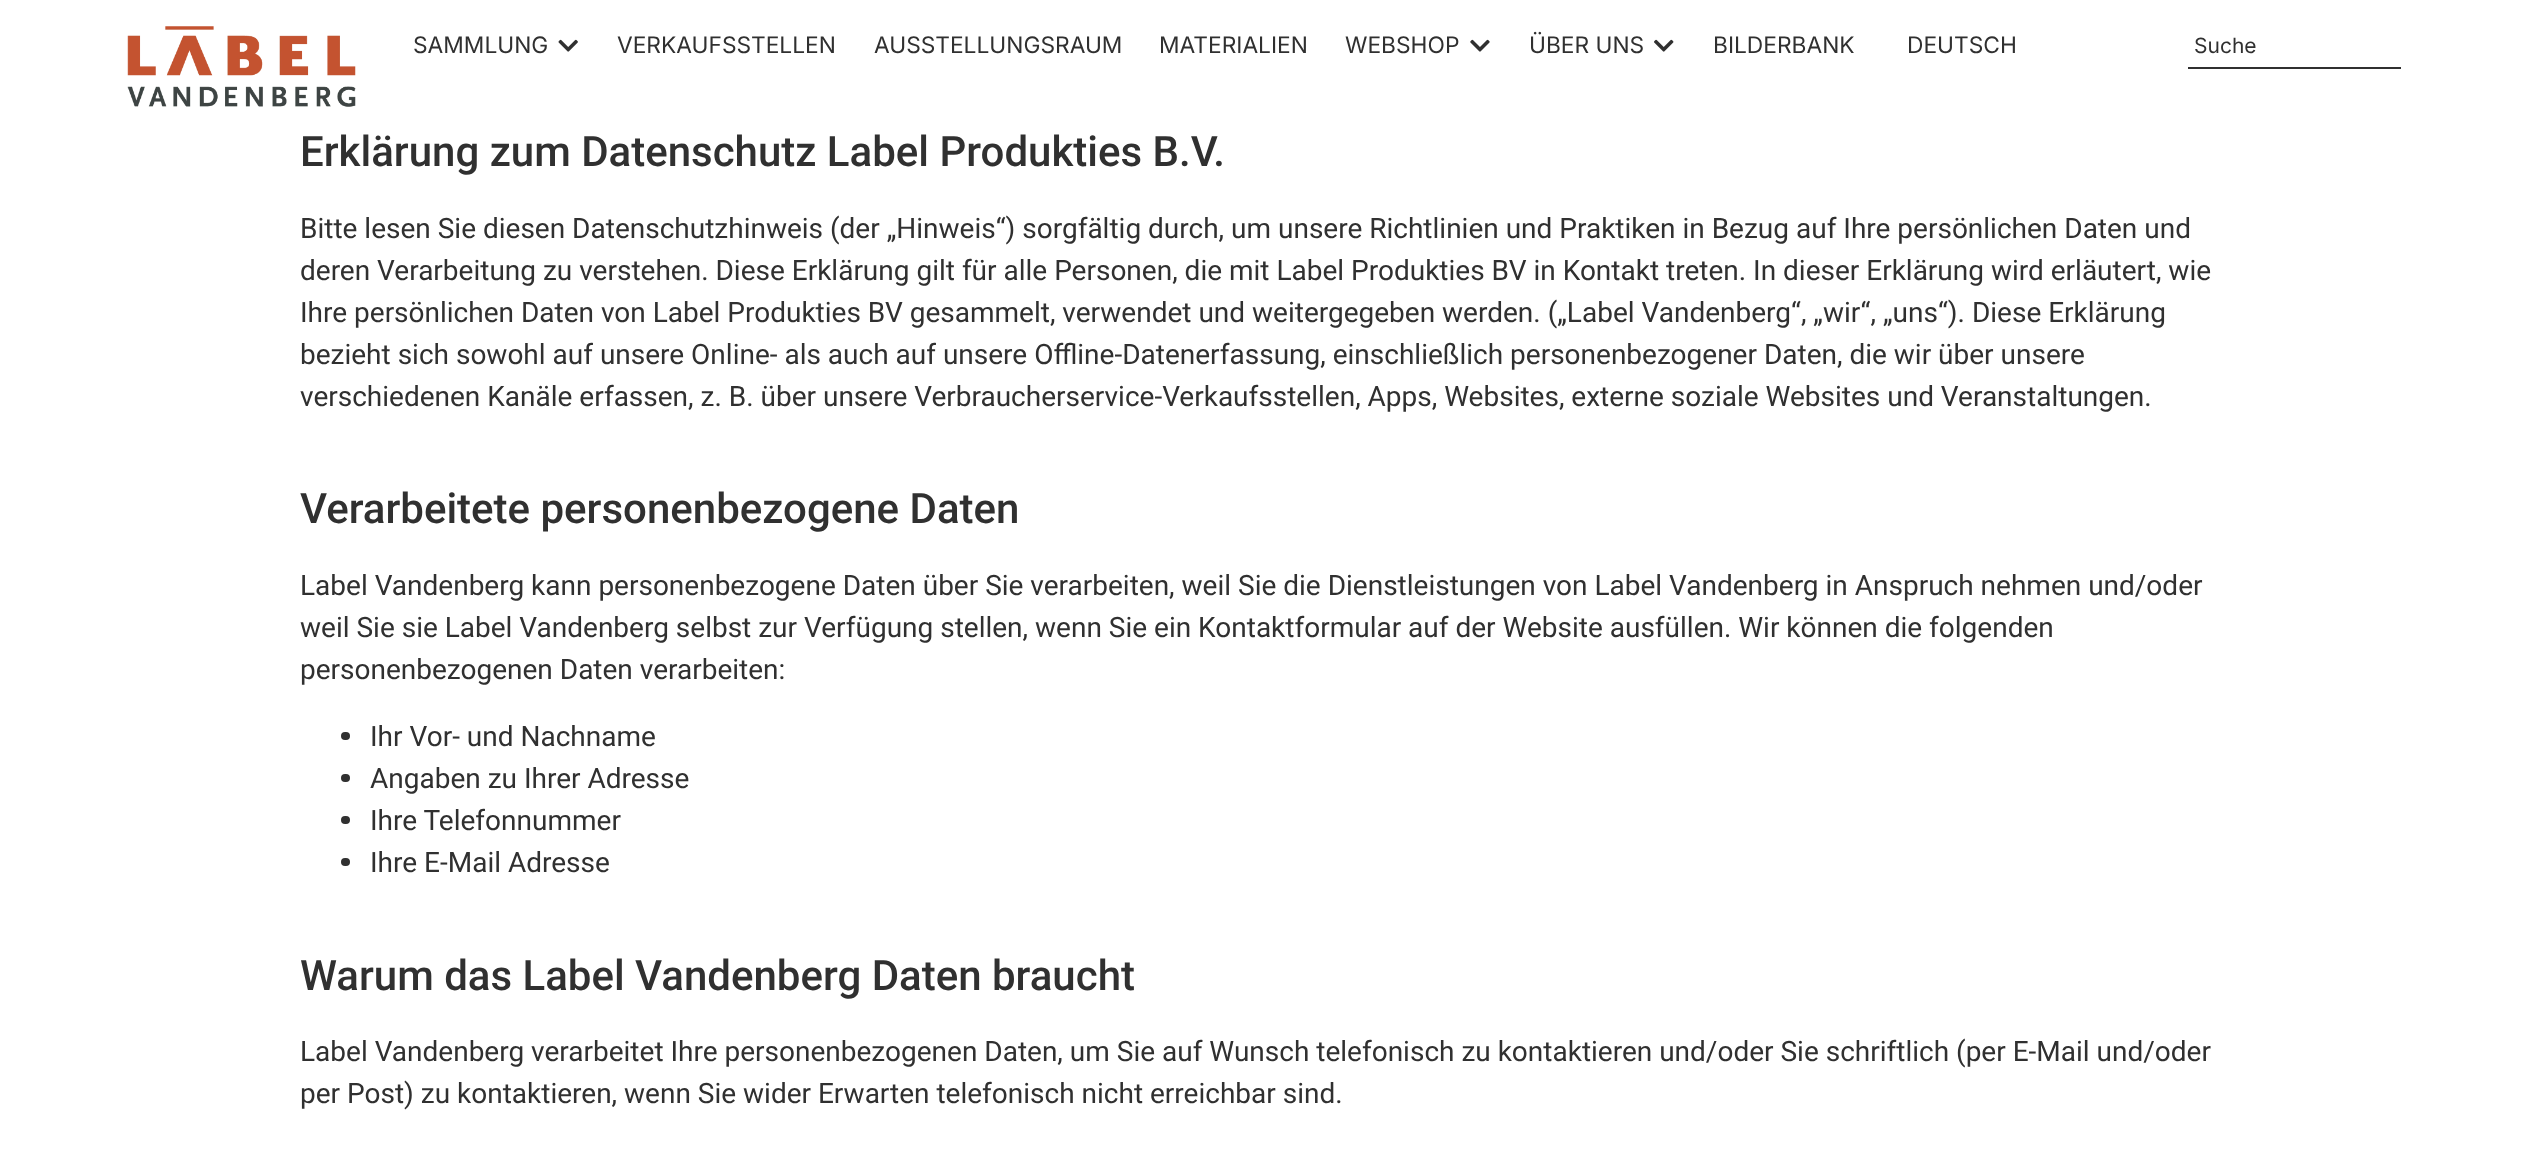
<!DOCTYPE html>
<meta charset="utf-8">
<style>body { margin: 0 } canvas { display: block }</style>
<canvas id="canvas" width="2542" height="1164"></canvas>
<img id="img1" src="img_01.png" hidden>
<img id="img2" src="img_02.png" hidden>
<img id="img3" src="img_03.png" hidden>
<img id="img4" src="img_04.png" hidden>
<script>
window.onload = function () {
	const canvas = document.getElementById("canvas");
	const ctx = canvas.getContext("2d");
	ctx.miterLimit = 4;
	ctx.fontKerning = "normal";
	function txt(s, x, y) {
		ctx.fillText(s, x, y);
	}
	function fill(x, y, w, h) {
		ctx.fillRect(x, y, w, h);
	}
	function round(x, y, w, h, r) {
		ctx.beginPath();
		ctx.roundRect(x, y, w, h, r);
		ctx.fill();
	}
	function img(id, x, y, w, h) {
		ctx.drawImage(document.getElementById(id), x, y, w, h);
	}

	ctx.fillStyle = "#FFFFFF";
	fill(0, 0, 2542, 1164);
	img("img1", 127, 26, 229, 81);
	img("img2", 558, 39, 20, 13);
	img("img3", 1470, 39, 20, 13);
	img("img4", 1654, 39, 20, 13);
	ctx.fillStyle = "#303030";
	fill(2188, 67, 213, 2);
	round(341, 732, 9, 8, 4);
	round(341, 774, 9, 8, 4);
	round(341, 816, 9, 8, 4);
	round(341, 858, 9, 8, 4);
	ctx.font = "22.75px Inter";
	txt("SAMMLUNG", 413, 53);
	txt("VERKAUFSSTELLEN", 617, 53);
	txt("AUSSTELLUNGSRAUM", 874, 53);
	txt("MATERIALIEN", 1159, 53);
	txt("WEBSHOP", 1345, 53);
	txt("ÜBER UNS", 1529, 53);
	txt("BILDERBANK", 1713, 53);
	txt("DEUTSCH", 1907, 53);
	ctx.font = "21px Inter";
	txt("Suche", 2194, 53);
	ctx.font = "500 42px Roboto";
	txt("Erklärung zum Datenschutz Label Produkties B.V.", 300, 166);
	ctx.font = "28px Roboto";
	txt("Bitte lesen Sie diesen Datenschutzhinweis (der „Hinweis“) sorgfältig durch, um unsere Richtlinien und Praktiken in Bezug auf Ihre persönlichen Daten und", 300, 238);
	txt("deren Verarbeitung zu verstehen. Diese Erklärung gilt für alle Personen, die mit Label Produkties BV in Kontakt treten. In dieser Erklärung wird erläutert, wie", 300, 280);
	txt("Ihre persönlichen Daten von Label Produkties BV gesammelt, verwendet und weitergegeben werden. („Label Vandenberg“, „wir“, „uns“). Diese Erklärung", 300, 322);
	txt("bezieht sich sowohl auf unsere Online- als auch auf unsere Offline-Datenerfassung, einschließlich personenbezogener Daten, die wir über unsere", 300, 364);
	txt("verschiedenen Kanäle erfassen, z. B. über unsere Verbraucherservice-Verkaufsstellen, Apps, Websites, externe soziale Websites und Veranstaltungen.", 300, 406);
	ctx.font = "500 42px Roboto";
	txt("Verarbeitete personenbezogene Daten", 300, 523);
	ctx.font = "28px Roboto";
	txt("Label Vandenberg kann personenbezogene Daten über Sie verarbeiten, weil Sie die Dienstleistungen von Label Vandenberg in Anspruch nehmen und/oder", 300, 595);
	txt("weil Sie sie Label Vandenberg selbst zur Verfügung stellen, wenn Sie ein Kontaktformular auf der Website ausfüllen. Wir können die folgenden", 300, 637);
	txt("personenbezogenen Daten verarbeiten:", 300, 679);
	txt("Ihr Vor- und Nachname", 370, 746);
	txt("Angaben zu Ihrer Adresse", 370, 788);
	txt("Ihre Telefonnummer", 370, 830);
	txt("Ihre E-Mail Adresse", 370, 872);
	ctx.font = "500 42px Roboto";
	txt("Warum das Label Vandenberg Daten braucht", 300, 990);
	ctx.font = "28px Roboto";
	txt("Label Vandenberg verarbeitet Ihre personenbezogenen Daten, um Sie auf Wunsch telefonisch zu kontaktieren und/oder Sie schriftlich (per E-Mail und/oder", 300, 1061);
	txt("per Post) zu kontaktieren, wenn Sie wider Erwarten telefonisch nicht erreichbar sind.", 300, 1103);
};
</script>
